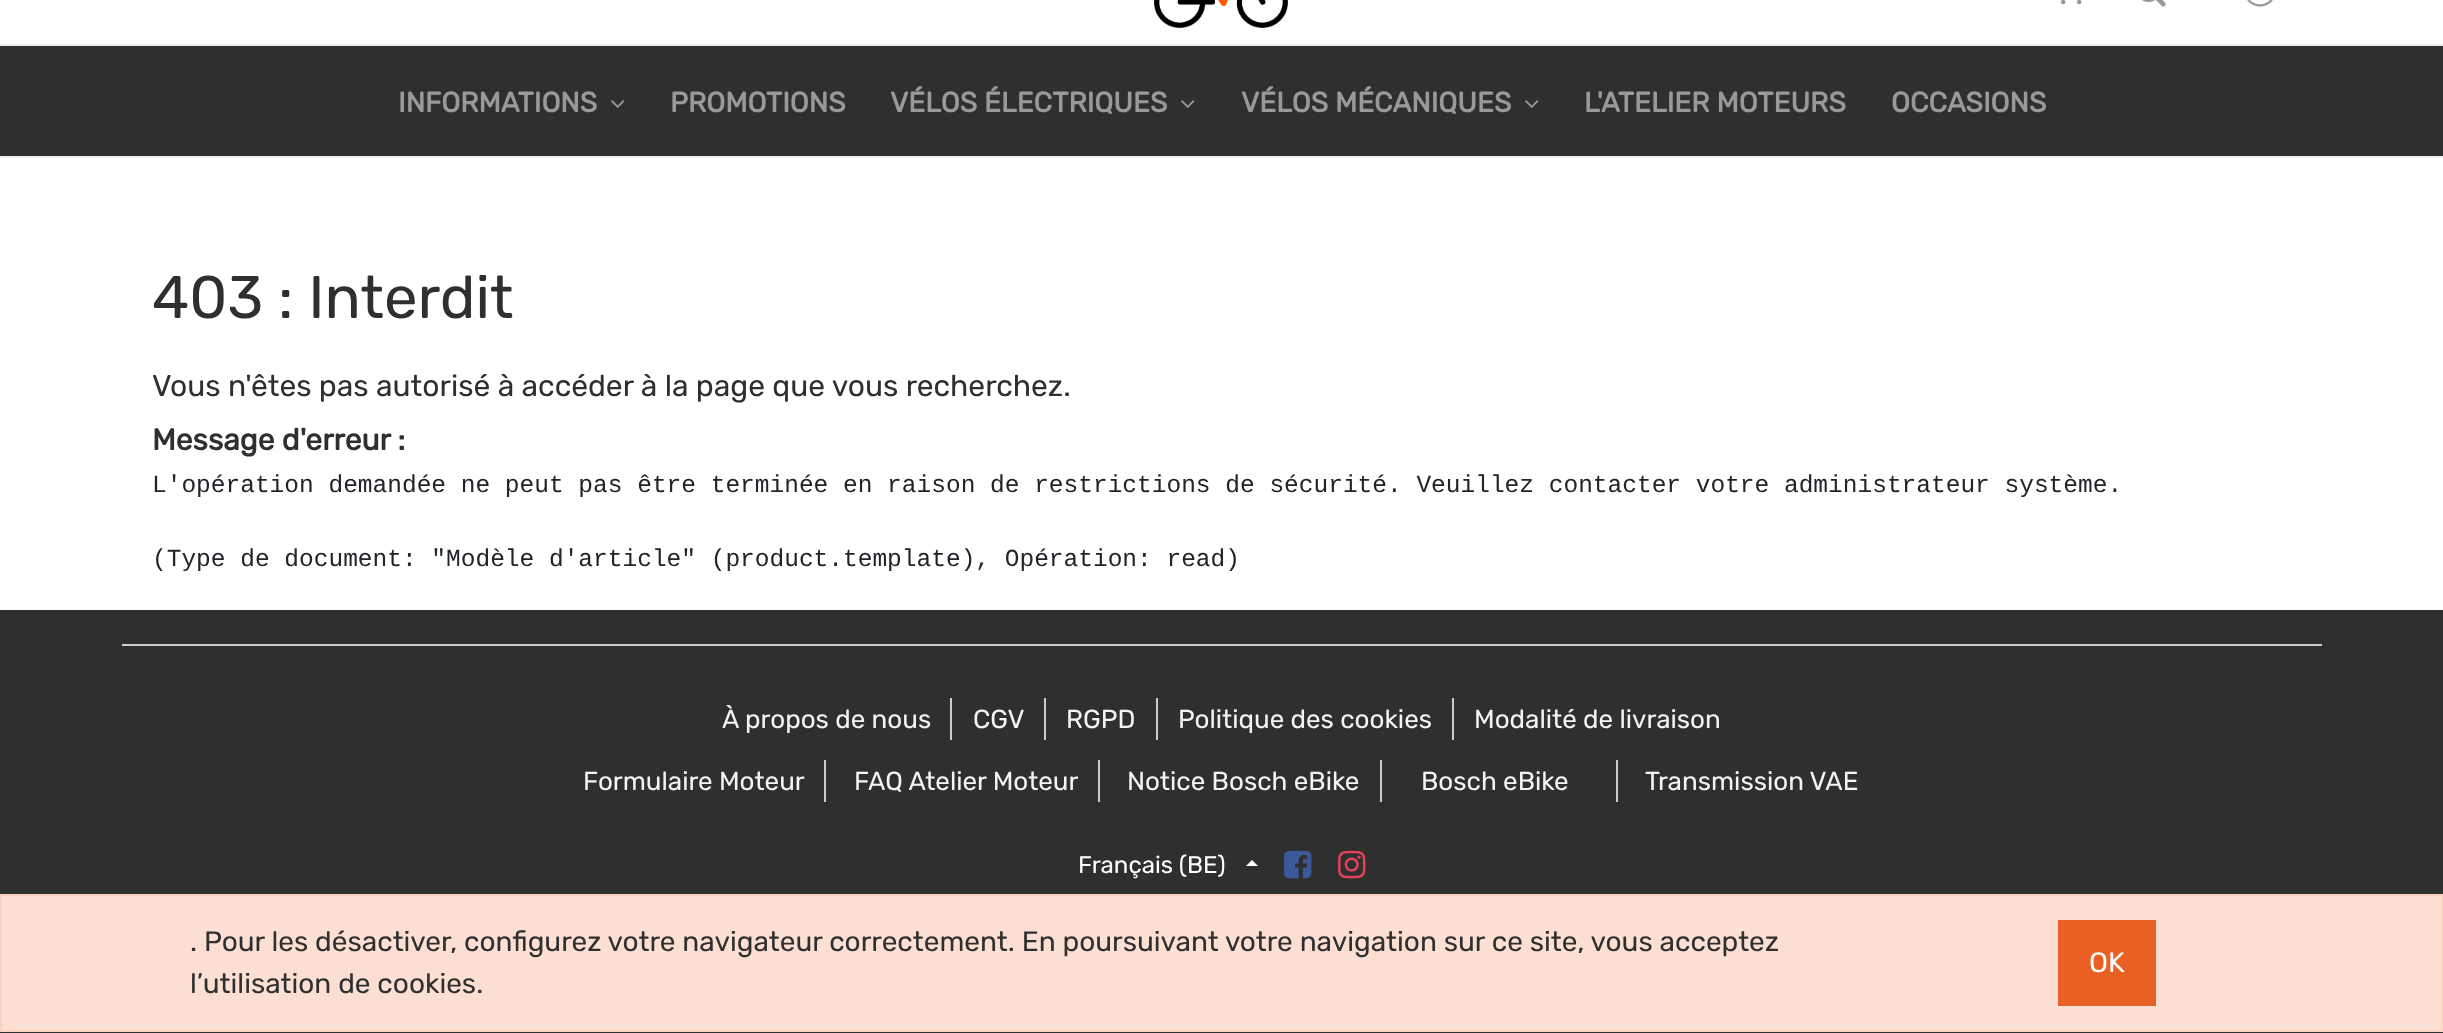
<!DOCTYPE html>
<meta charset="utf-8">
<style>body { margin: 0 } canvas { display: block }</style>
<canvas id="canvas" width="2443" height="1033"></canvas>
<img id="img1" src="img_01.png" hidden>
<img id="img2" src="img_02.png" hidden>
<img id="img3" src="img_03.png" hidden>
<img id="img4" src="img_04.png" hidden>
<img id="img5" src="img_05.png" hidden>
<img id="img6" src="img_06.png" hidden>
<img id="img7" src="img_07.png" hidden>
<script>
window.onload = function () {
	const canvas = document.getElementById("canvas");
	const ctx = canvas.getContext("2d");
	ctx.miterLimit = 4;
	ctx.fontKerning = "normal";
	function txt(s, x, y) {
		ctx.fillText(s, x, y);
	}
	function fill(x, y, w, h) {
		ctx.fillRect(x, y, w, h);
	}
	function img(id, x, y, w, h) {
		ctx.drawImage(document.getElementById(id), x, y, w, h);
	}

	ctx.fillStyle = "#FFFFFF";
	fill(0, 0, 2443, 1033);
	img("img1", 1154, 0, 134, 28);
	img("img2", 2060, 0, 22, 5);
	img("img3", 2142, 0, 24, 7);
	img("img4", 2247, 0, 26, 7);
	ctx.fillStyle = "#302F2F";
	fill(0, 46, 2443, 110);
	ctx.fillStyle = "#EDEDED";
	fill(0, 44, 2443, 2);
	fill(0, 156, 2443, 2);
	img("img5", 611, 100, 14, 8);
	img("img5", 1181, 100, 14, 8);
	img("img5", 1525, 100, 14, 8);
	ctx.fillStyle = "#302F2F";
	fill(0, 610, 2443, 423);
	ctx.fillStyle = "#CCCCCC";
	fill(122, 644, 2200, 2);
	fill(950, 698, 2, 42);
	fill(1044, 698, 2, 42);
	fill(1156, 698, 2, 42);
	fill(1452, 698, 2, 42);
	fill(824, 760, 2, 42);
	fill(1098, 760, 2, 42);
	fill(1380, 760, 2, 42);
	fill(1616, 760, 2, 42);
	ctx.fillStyle = "#FFFFFF";
	ctx.beginPath();
	ctx.moveTo(1258, 866);
	ctx.lineTo(1246, 866);
	ctx.lineTo(1252, 860);
	ctx.closePath();
	ctx.fill();
	img("img6", 1284, 850, 28, 29);
	img("img7", 1338, 850, 28, 29);
	ctx.fillStyle = "#FBDFD3";
	ctx.beginPath();
	ctx.rect(1, 895, 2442, 136);
	ctx.fill();
	ctx.strokeStyle = "#F9D2C2";
	ctx.lineWidth = 2;
	ctx.stroke();
	ctx.fillStyle = "#E95F24";
	fill(2058, 920, 98, 86);
	ctx.font = "bold 28px Rubik";
	ctx.fillStyle = "#999999";
	txt("INFORMATIONS", 398, 112);
	txt("PROMOTIONS", 670, 112);
	txt("VÉLOS ÉLECTRIQUES", 890, 112);
	txt("VÉLOS MÉCANIQUES", 1241, 112);
	txt("L'ATELIER MOTEURS", 1584, 112);
	txt("OCCASIONS", 1891, 112);
	ctx.font = "300 60px Rubik";
	ctx.fillStyle = "#302F2F";
	txt("403 : Interdit", 152, 318);
	ctx.font = "300 30px Rubik";
	txt("Vous n'êtes pas autorisé à accéder à la page que vous recherchez.", 152, 396);
	ctx.font = "bold 30px Rubik";
	txt("Message d'erreur :", 152, 450);
	ctx.font = "24.5px Liberation Mono";
	ctx.fillStyle = "#212529";
	txt("L'opération demandée ne peut pas être terminée en raison de restrictions de sécurité. Veuillez contacter votre administrateur système.", 152, 492);
	txt("(Type de document: \"Modèle d'article\" (product.template), Opération: read)", 152, 566);
	ctx.font = "300 26px Rubik";
	ctx.fillStyle = "#F4F4F4";
	txt("À propos de nous", 722, 728);
	txt("CGV", 973, 728);
	txt("RGPD", 1066, 728);
	txt("Politique des cookies", 1178, 728);
	txt("Modalité de livraison", 1474, 728);
	txt("Formulaire Moteur", 583, 790);
	txt("FAQ Atelier Moteur", 854, 790);
	txt("Notice Bosch eBike", 1127, 790);
	txt("Bosch eBike", 1421, 790);
	txt("Transmission VAE", 1645, 790);
	ctx.font = "300 24px Rubik";
	ctx.fillStyle = "#FFFFFF";
	txt("Français (BE)", 1078, 873);
	ctx.font = "300 28px Rubik";
	ctx.fillStyle = "#302F2F";
	txt(". Pour les désactiver, configurez votre navigateur correctement. En poursuivant votre navigation sur ce site, vous acceptez", 190, 951);
	txt("l’utilisation de cookies.", 190, 993);
	ctx.fillStyle = "#FFFFFF";
	txt("OK", 2089, 972);
};
</script>
